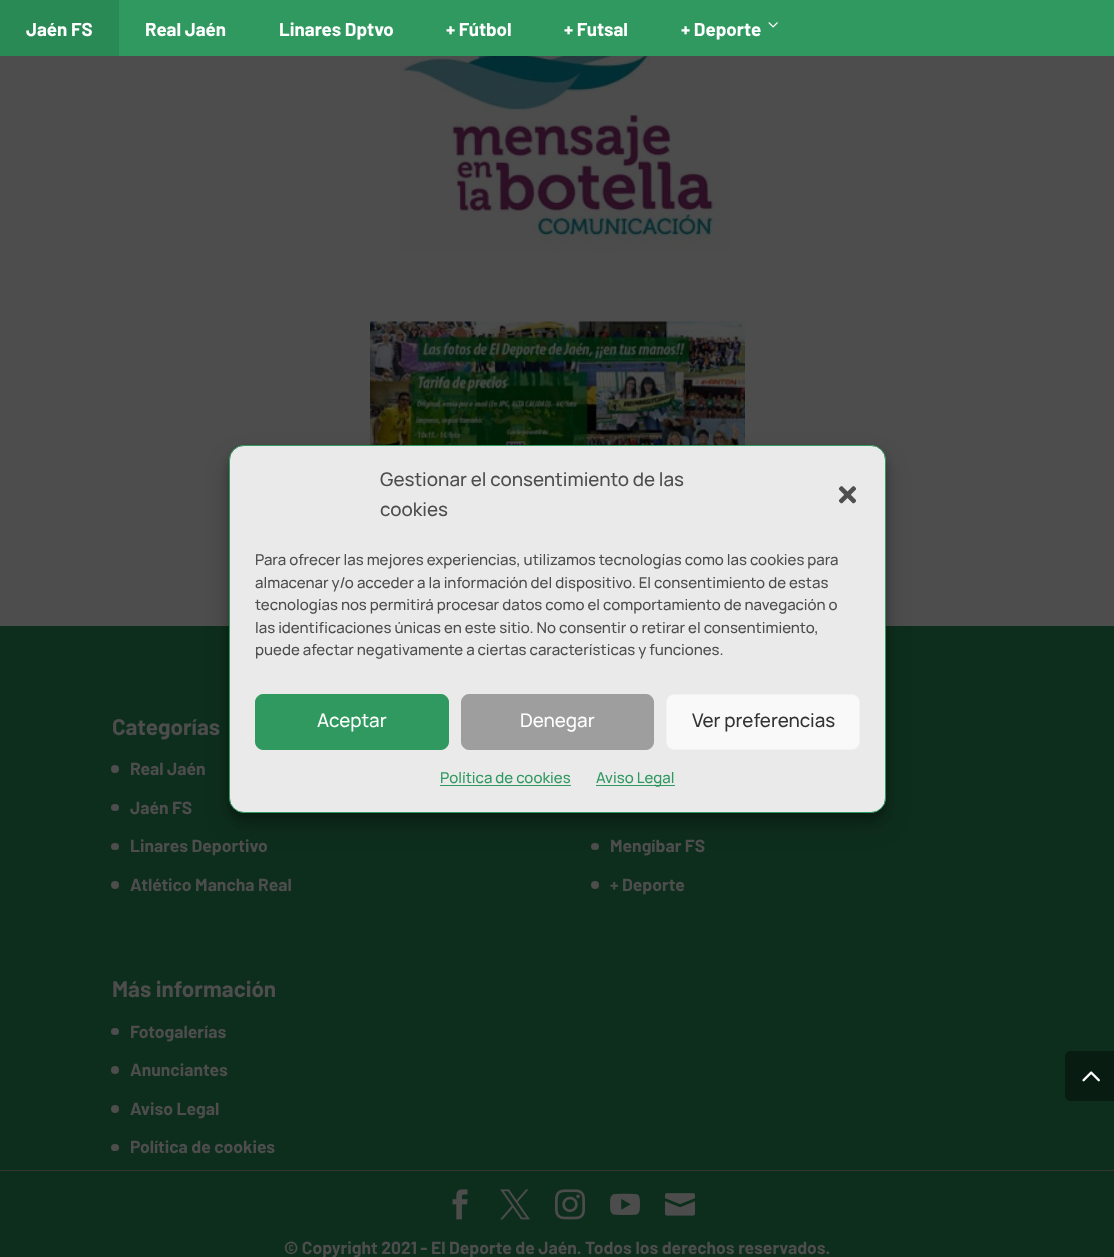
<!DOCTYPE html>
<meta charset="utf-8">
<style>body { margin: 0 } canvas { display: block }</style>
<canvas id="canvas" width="1114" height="1257"></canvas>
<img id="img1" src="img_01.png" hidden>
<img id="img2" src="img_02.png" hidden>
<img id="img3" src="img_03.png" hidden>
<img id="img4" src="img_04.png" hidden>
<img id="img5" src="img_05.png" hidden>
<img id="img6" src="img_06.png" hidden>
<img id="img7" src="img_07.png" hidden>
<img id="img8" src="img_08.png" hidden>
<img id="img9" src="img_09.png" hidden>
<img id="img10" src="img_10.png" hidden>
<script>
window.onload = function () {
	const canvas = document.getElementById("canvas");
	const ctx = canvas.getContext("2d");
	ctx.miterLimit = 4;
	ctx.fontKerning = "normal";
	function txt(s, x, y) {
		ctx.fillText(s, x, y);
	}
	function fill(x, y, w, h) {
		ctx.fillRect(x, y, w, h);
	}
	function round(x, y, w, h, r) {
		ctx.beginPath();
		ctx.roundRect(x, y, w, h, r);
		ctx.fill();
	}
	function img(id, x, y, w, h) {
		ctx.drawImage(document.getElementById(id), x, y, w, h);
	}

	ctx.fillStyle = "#4D4D4D";
	fill(0, 0, 1114, 1257);
	ctx.fillStyle = "#2F9960";
	fill(119, 0, 995, 56);
	ctx.fillStyle = "#2A8A56";
	fill(0, 0, 119, 56);
	img("img1", 768, 22, 10, 6);
	img("img2", 400, 56, 330, 196);
	img("img3", 370, 321, 375, 124);
	ctx.fillStyle = "#0E2E1D";
	fill(0, 626, 1114, 544);
	ctx.fillStyle = "#343434";
	fill(0, 1170, 1114, 1);
	ctx.fillStyle = "#4D4D4D";
	ctx.beginPath();
	ctx.arc(115, 769, 4, 0, Math.PI * 2);
	ctx.fill();
	round(111, 804, 8, 7, 3.5);
	round(111, 843, 8, 7, 3.5);
	ctx.beginPath();
	ctx.arc(115, 885, 4, 0, Math.PI * 2);
	ctx.fill();
	round(591, 843, 8, 7, 3.5);
	ctx.beginPath();
	ctx.arc(595, 885, 4, 0, Math.PI * 2);
	ctx.fill();
	round(111, 1028, 8, 7, 3.5);
	ctx.beginPath();
	ctx.arc(115, 1070, 4, 0, Math.PI * 2);
	ctx.fill();
	ctx.beginPath();
	ctx.arc(115, 1109, 4, 0, Math.PI * 2);
	ctx.fill();
	round(111, 1144, 8, 7, 3.5);
	ctx.fillStyle = "#081C11";
	ctx.beginPath();
	ctx.moveTo(1071, 1051);
	ctx.lineTo(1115, 1051);
	ctx.lineTo(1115, 1101);
	ctx.lineTo(1071, 1101);
	ctx.bezierCurveTo(1067.5, 1101, 1065, 1098.5, 1065, 1095);
	ctx.lineTo(1065, 1057);
	ctx.bezierCurveTo(1065, 1053.5, 1067.5, 1051, 1071, 1051);
	ctx.closePath();
	ctx.fill();
	img("img4", 1082, 1071, 18, 11);
	ctx.fillStyle = "#0E2E1D";
	fill(0, 1171, 1114, 86);
	img("img5", 452, 1189, 16, 31);
	img("img6", 500, 1189, 30, 31);
	img("img7", 555, 1189, 30, 31);
	img("img8", 610, 1193, 30, 23);
	img("img9", 665, 1193, 30, 23);
	ctx.fillStyle = "rgba(0, 0, 0, 0.23)";
	ctx.filter = "blur(4px)";
	ctx.beginPath();
	ctx.roundRect(229, 453, 657, 367, 15);
	ctx.fill();
	ctx.filter = "none";
	ctx.fillStyle = "rgba(0, 0, 0, 0.19)";
	ctx.filter = "blur(12.5px)";
	ctx.beginPath();
	ctx.roundRect(229, 458, 657, 367, 15);
	ctx.fill();
	ctx.filter = "none";
	ctx.fillStyle = "#EAEAEA";
	ctx.beginPath();
	ctx.roundRect(229.5, 445.5, 656, 367, 14.5);
	ctx.fill();
	ctx.strokeStyle = "#2F9960";
	ctx.stroke();
	img("img10", 838, 486, 19, 18);
	ctx.fillStyle = "#2F9960";
	ctx.beginPath();
	ctx.roundRect(255.5, 694.5, 193, 55, 7.5);
	ctx.fill();
	ctx.stroke();
	ctx.fillStyle = "#9E9E9E";
	ctx.beginPath();
	ctx.roundRect(461.5, 694.5, 192, 55, 7.5);
	ctx.fill();
	ctx.strokeStyle = "#9E9E9E";
	ctx.stroke();
	ctx.fillStyle = "#F9F9F9";
	ctx.beginPath();
	ctx.roundRect(666.5, 694.5, 193, 55, 7.5);
	ctx.fill();
	ctx.strokeStyle = "#F2F2F2";
	ctx.stroke();
	ctx.fillStyle = "#2F9960";
	fill(440, 785, 131, 1);
	fill(596, 785, 79, 1);
	ctx.font = "bold 18.75px Barlow";
	ctx.fillStyle = "#FFFFFF";
	txt("Jaén FS", 26, 36);
	txt("Real Jaén", 145, 36);
	txt("Linares Dptvo", 279, 36);
	txt("+ Fútbol", 446, 36);
	txt("+ Futsal", 564, 36);
	txt("+ Deporte", 681, 36);
	ctx.font = "bold 22.5px Barlow";
	ctx.fillStyle = "#4D4D4D";
	txt("Categorías", 112, 735);
	ctx.font = "bold 17.5px Barlow";
	txt("Real Jaén", 130, 775);
	txt("Jaén FS", 130, 814);
	txt("Linares Deportivo", 130, 852);
	txt("Atlético Mancha Real", 130, 891);
	txt("Mengíbar FS", 610, 852);
	txt("+ Deporte", 610, 891);
	ctx.font = "bold 22.5px Barlow";
	txt("Más información", 112, 997);
	ctx.font = "bold 17.5px Barlow";
	txt("Fotogalerías", 130, 1038);
	txt("Anunciantes", 130, 1076);
	txt("Aviso Legal", 130, 1115);
	txt("Política de cookies", 130, 1153);
	txt("© Copyright 2021 - El Deporte de Jaén. Todos los derechos reservados.", 284, 1254);
	ctx.font = "500 18.75px Manrope";
	txt("Gestionar el consentimiento de las", 380, 486);
	txt("cookies", 380, 516);
	ctx.font = "500 15px Manrope";
	txt("Para ofrecer las mejores experiencias, utilizamos tecnologías como las cookies para", 255, 565);
	txt("almacenar y/o acceder a la información del dispositivo. El consentimiento de estas", 255, 588);
	txt("tecnologías nos permitirá procesar datos como el comportamiento de navegación o", 255, 610);
	txt("las identificaciones únicas en este sitio. No consentir o retirar el consentimiento,", 255, 633);
	txt("puede afectar negativamente a ciertas características y funciones.", 255, 655);
	ctx.font = "500 18.75px Manrope";
	ctx.fillStyle = "#FFFFFF";
	txt("Aceptar", 317, 727);
	txt("Denegar", 520, 727);
	ctx.fillStyle = "#333333";
	txt("Ver preferencias", 692, 727);
	ctx.font = "500 15px Manrope";
	ctx.fillStyle = "#2F9960";
	txt("Política de cookies", 440, 783);
	txt("Aviso Legal", 596, 783);
};
</script>
